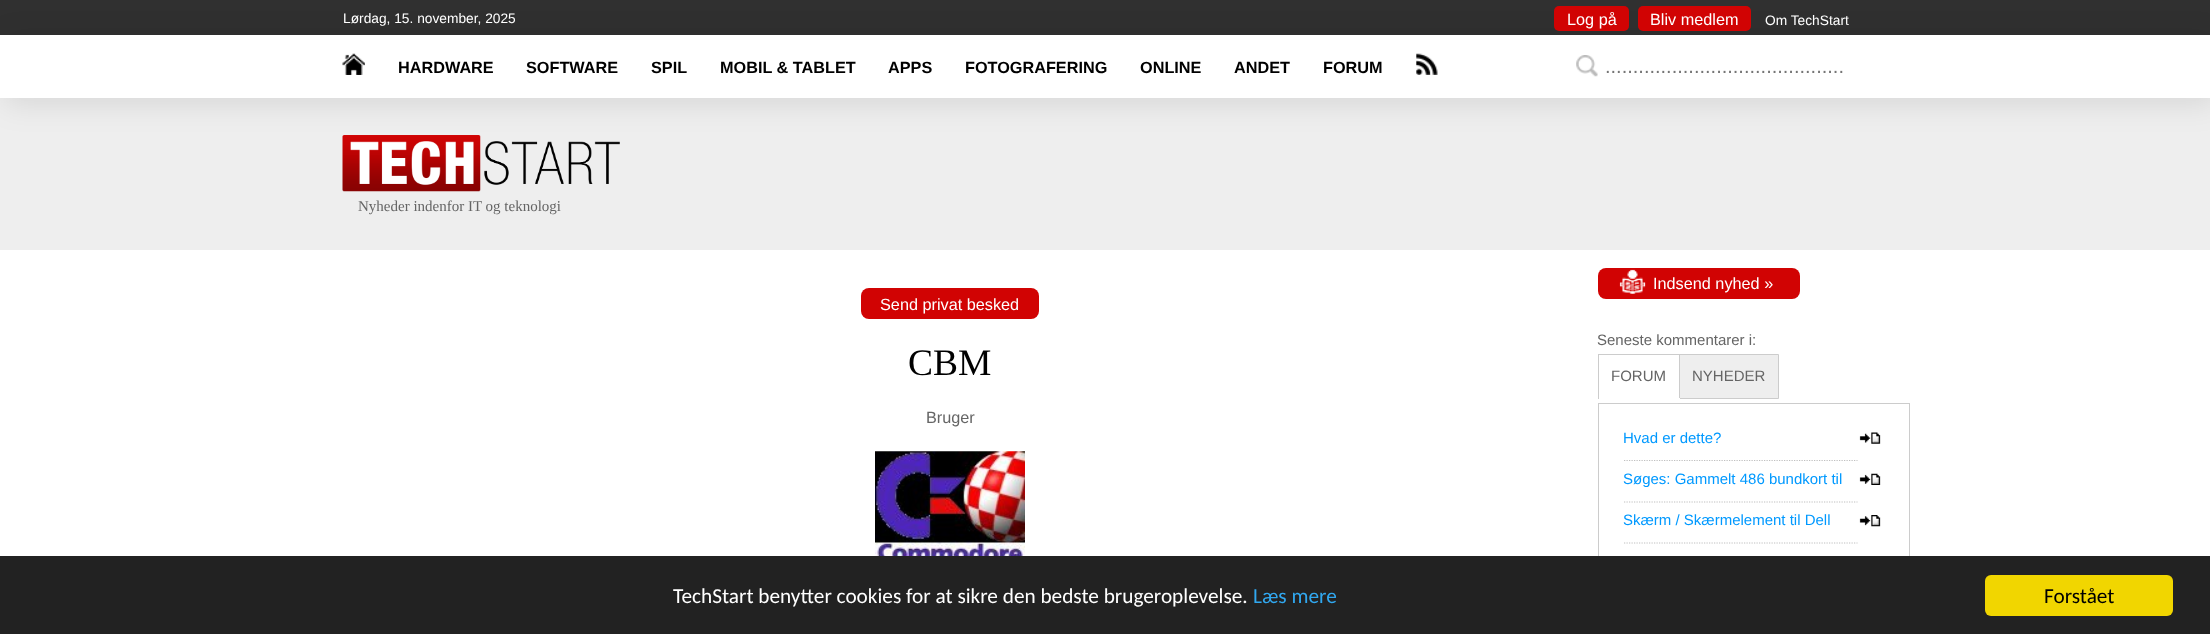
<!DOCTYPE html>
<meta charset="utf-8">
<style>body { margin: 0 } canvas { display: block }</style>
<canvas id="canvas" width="2210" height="634"></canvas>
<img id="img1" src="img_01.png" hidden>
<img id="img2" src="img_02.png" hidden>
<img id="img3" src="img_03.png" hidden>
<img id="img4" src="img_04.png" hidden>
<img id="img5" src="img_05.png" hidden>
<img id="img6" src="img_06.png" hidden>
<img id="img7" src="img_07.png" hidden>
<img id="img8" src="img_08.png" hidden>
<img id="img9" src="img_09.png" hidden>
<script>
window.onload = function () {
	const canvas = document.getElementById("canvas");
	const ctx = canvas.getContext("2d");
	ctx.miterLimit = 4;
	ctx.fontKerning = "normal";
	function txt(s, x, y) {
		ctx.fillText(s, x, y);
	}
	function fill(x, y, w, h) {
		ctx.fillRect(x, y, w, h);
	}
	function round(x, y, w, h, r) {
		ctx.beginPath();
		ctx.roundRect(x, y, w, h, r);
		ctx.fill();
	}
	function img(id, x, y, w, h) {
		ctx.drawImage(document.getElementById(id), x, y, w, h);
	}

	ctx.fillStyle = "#FFFFFF";
	fill(0, 0, 2210, 634);
	ctx.fillStyle = "#EEEEEE";
	fill(0, 98, 2210, 152);
	ctx.fillStyle = "#303030";
	fill(0, 0, 2210, 35);
	ctx.fillStyle = "rgba(0, 0, 0, 0.1)";
	ctx.filter = "blur(15.5px)";
	ctx.beginPath();
	ctx.rect(5, 40, 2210, 63);
	ctx.fill();
	ctx.filter = "none";
	ctx.fillStyle = "#D10303";
	round(1554, 6, 75, 25, 5);
	round(1638, 6, 113, 25, 5);
	img("img1", 342, 135, 278, 57);
	ctx.fillStyle = "#FFFFFF";
	fill(0, 35, 2210, 63);
	img("img2", 342, 53, 23, 22);
	img("img3", 1416, 53, 22, 22);
	img("img4", 1576, 55, 22, 22);
	ctx.fillStyle = "#D10303";
	round(1598, 268, 202, 31, 8);
	img("img5", 1619, 269, 27, 25);
	round(861, 288, 178, 31, 8);
	img("img6", 875, 451, 150, 105);
	ctx.fillStyle = "#EEEEEE";
	ctx.beginPath();
	ctx.rect(1679.5, 354.5, 99, 44);
	ctx.fill();
	ctx.strokeStyle = "#CCCCCC";
	ctx.stroke();
	ctx.fillStyle = "#CCCCCC";
	fill(1598, 354, 82, 1);
	ctx.fillStyle = "#FFFFFF";
	fill(1679, 398, 1, 1);
	ctx.fillStyle = "#CCCCCC";
	fill(1598, 354, 1, 45);
	ctx.strokeRect(1598.5, 403.5, 311, 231);
	img("img7", 1859, 432, 22, 12);
	ctx.beginPath();
	ctx.moveTo(1624, 460.5);
	ctx.lineTo(1857.5, 460.5);
	ctx.strokeStyle = "#C0C0C0";
	ctx.lineWidth = 1.2;
	ctx.setLineDash([1.25, 1.25]);
	ctx.stroke();
	img("img8", 1859, 473, 22, 12);
	ctx.beginPath();
	ctx.moveTo(1624, 502);
	ctx.lineTo(1857.5, 502);
	ctx.stroke();
	img("img9", 1859, 515, 22, 12);
	ctx.beginPath();
	ctx.moveTo(1624, 543);
	ctx.lineTo(1857.5, 543);
	ctx.stroke();
	ctx.fillStyle = "#222222";
	fill(0, 556, 2210, 78);
	ctx.fillStyle = "#F1D600";
	round(1985, 575, 188, 41, 6);
	ctx.font = "13.75px Liberation Sans";
	ctx.fillStyle = "#FFFFFF";
	txt("Lørdag, 15. november, 2025", 343, 23);
	ctx.font = "16.25px Liberation Sans";
	txt("Log på", 1567, 25);
	txt("Bliv medlem", 1650, 25);
	ctx.font = "13.75px Liberation Sans";
	txt("Om TechStart", 1765, 25);
	ctx.font = "15px Liberation Serif";
	ctx.fillStyle = "#656565";
	txt("Nyheder indenfor IT og teknologi", 358, 211);
	ctx.font = "bold 16.25px Liberation Sans";
	ctx.fillStyle = "#000000";
	txt("HARDWARE", 398, 73);
	txt("SOFTWARE", 526, 73);
	txt("SPIL", 651, 73);
	txt("MOBIL & TABLET", 720, 73);
	txt("APPS", 888, 73);
	txt("FOTOGRAFERING", 965, 73);
	txt("ONLINE", 1140, 73);
	txt("ANDET", 1234, 73);
	txt("FORUM", 1323, 73);
	ctx.font = "20px Liberation Sans";
	ctx.fillStyle = "#757575";
	txt("...........................................", 1605, 73);
	ctx.font = "16.25px Liberation Sans";
	ctx.fillStyle = "#FFFFFF";
	txt("Indsend nyhed »", 1653, 289);
	txt("Send privat besked", 880, 310);
	ctx.font = "37.5px Tinos";
	ctx.fillStyle = "#000000";
	txt("CBM", 908, 375);
	ctx.font = "16.25px Liberation Sans";
	ctx.fillStyle = "#656565";
	txt("Bruger", 926, 423);
	ctx.font = "15px Liberation Sans";
	txt("Seneste kommentarer i:", 1597, 345);
	txt("FORUM", 1611, 381);
	ctx.fillStyle = "#0099FF";
	txt("Hvad er dette?", 1623, 443);
	txt("Søges: Gammelt 486 bundkort til", 1623, 484);
	txt("Skærm / Skærmelement til Dell", 1623, 525);
	ctx.fillStyle = "#656565";
	txt("NYHEDER", 1692, 381);
	ctx.font = "21.25px Carlito";
	ctx.fillStyle = "#FFFFFF";
	txt("TechStart benytter cookies for at sikre den bedste brugeroplevelse.", 673, 603);
	ctx.fillStyle = "#31A8F0";
	txt("Læs mere", 1253, 603);
	ctx.fillStyle = "#000000";
	txt("Forstået", 2044, 603);
};
</script>
